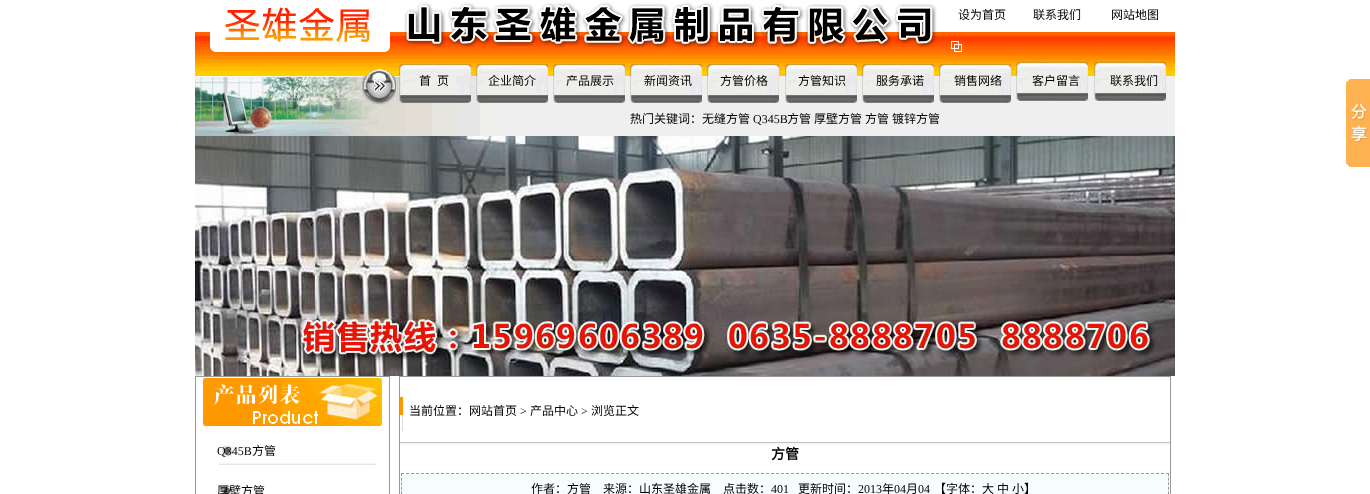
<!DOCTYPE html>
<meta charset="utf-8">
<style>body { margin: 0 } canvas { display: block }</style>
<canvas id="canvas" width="1370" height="494"></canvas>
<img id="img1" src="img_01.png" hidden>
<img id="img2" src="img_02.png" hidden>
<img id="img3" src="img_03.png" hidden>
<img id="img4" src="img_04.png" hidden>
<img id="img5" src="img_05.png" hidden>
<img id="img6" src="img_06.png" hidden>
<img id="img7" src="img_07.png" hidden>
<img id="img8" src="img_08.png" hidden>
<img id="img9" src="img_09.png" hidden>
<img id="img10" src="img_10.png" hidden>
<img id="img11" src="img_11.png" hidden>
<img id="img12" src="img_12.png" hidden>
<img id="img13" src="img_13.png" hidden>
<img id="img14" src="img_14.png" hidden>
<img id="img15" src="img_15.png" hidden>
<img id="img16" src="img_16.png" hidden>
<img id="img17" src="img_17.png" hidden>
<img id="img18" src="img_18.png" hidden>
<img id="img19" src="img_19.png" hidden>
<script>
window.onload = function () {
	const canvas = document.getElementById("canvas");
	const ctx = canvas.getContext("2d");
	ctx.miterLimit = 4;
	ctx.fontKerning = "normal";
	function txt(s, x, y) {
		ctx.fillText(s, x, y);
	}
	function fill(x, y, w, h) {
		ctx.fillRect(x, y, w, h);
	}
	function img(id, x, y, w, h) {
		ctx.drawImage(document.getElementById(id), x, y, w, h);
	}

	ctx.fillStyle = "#FFFFFF";
	fill(0, 0, 1370, 494);
	img("img1", 195, 7, 200, 129);
	img("img2", 395, 2, 550, 58);
	img("img3", 945, 32, 230, 28);
	img("img4", 395, 60, 78, 42);
	img("img5", 473, 60, 78, 42);
	img("img6", 551, 60, 78, 42);
	img("img7", 629, 60, 78, 42);
	img("img8", 707, 60, 78, 42);
	img("img9", 785, 60, 78, 42);
	img("img10", 863, 60, 78, 42);
	img("img11", 941, 60, 78, 42);
	img("img12", 1019, 60, 78, 42);
	img("img13", 1097, 60, 78, 42);
	img("img14", 395, 102, 780, 34);
	img("img15", 195, 136, 980, 240);
	ctx.strokeStyle = "#999999";
	ctx.strokeRect(195.5, 376.5, 194, 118);
	img("img16", 203, 377, 180, 50);
	img("img17", 218, 435, 158, 59);
	ctx.strokeRect(399.5, 376.5, 771, 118);
	img("img18", 400, 395, 770, 50);
	ctx.fillStyle = "#F7FCFF";
	fill(401, 473, 768, 21);
	ctx.beginPath();
	ctx.moveTo(401, 473.5);
	ctx.lineTo(1169, 473.5);
	ctx.setLineDash([3, 2]);
	ctx.stroke();
	ctx.beginPath();
	ctx.moveTo(1168.5, 473);
	ctx.lineTo(1168.5, 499);
	ctx.setLineDash([3, 1.6]);
	ctx.stroke();
	ctx.beginPath();
	ctx.moveTo(401.5, 473);
	ctx.lineTo(401.5, 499);
	ctx.stroke();
	img("img19", 1346, 79, 24, 88);
	ctx.font = "12px Noto Sans CJK SC";
	ctx.fillStyle = "#000000";
	txt("设为首页", 958, 19);
	txt("联系我们", 1033, 19);
	txt("网站地图", 1111, 19);
	txt("首", 419, 85);
	txt("页", 437, 85);
	txt("企业简介", 488, 85);
	txt("产品展示", 566, 85);
	txt("新闻资讯", 644, 85);
	txt("方管价格", 720, 85);
	txt("方管知识", 798, 85);
	txt("服务承诺", 876, 85);
	txt("销售网络", 954, 85);
	txt("客户留言", 1032, 85);
	txt("联系我们", 1110, 85);
	txt("热门关键词：无缝方管", 630, 123);
	ctx.font = "12px Liberation Serif";
	txt("Q345B", 753, 123);
	ctx.font = "12px Noto Sans CJK SC";
	txt("方管", 787, 123);
	txt("厚壁方管", 814, 123);
	txt("方管", 865, 123);
	txt("镀锌方管", 892, 123);
	ctx.font = "12px Liberation Serif";
	txt("Q345B", 217, 455);
	ctx.font = "12px Noto Sans CJK SC";
	txt("方管", 252, 455);
	txt("厚壁方管", 217, 495);
	txt("当前位置：网站首页", 409, 415);
	ctx.font = "12px Liberation Serif";
	txt(">", 520, 415);
	ctx.font = "12px Noto Sans CJK SC";
	txt("产品中心", 530, 415);
	ctx.font = "12px Liberation Serif";
	txt(">", 581, 415);
	ctx.font = "12px Noto Sans CJK SC";
	txt("浏览正文", 591, 415);
	ctx.font = "bold 14px Noto Sans CJK SC";
	txt("方管", 771, 459);
	ctx.font = "12px Noto Sans CJK SC";
	txt("作者：方管", 531, 493);
	txt("来源：山东圣雄金属", 603, 493);
	txt("点击数：", 723, 493);
	ctx.font = "12px Liberation Serif";
	txt("401", 771, 493);
	ctx.font = "12px Noto Sans CJK SC";
	txt("更新时间：", 798, 493);
	ctx.font = "12px Liberation Serif";
	txt("2013", 858, 493);
	ctx.font = "12px Noto Sans CJK SC";
	txt("年", 882, 493);
	ctx.font = "12px Liberation Serif";
	txt("04", 894, 493);
	ctx.font = "12px Noto Sans CJK SC";
	txt("月", 906, 493);
	ctx.font = "12px Liberation Serif";
	txt("04", 918, 493);
	ctx.font = "12px Noto Sans CJK SC";
	txt("【字体：大", 934, 493);
	txt("中", 997, 493);
	txt("小】", 1012, 493);
};
</script>
